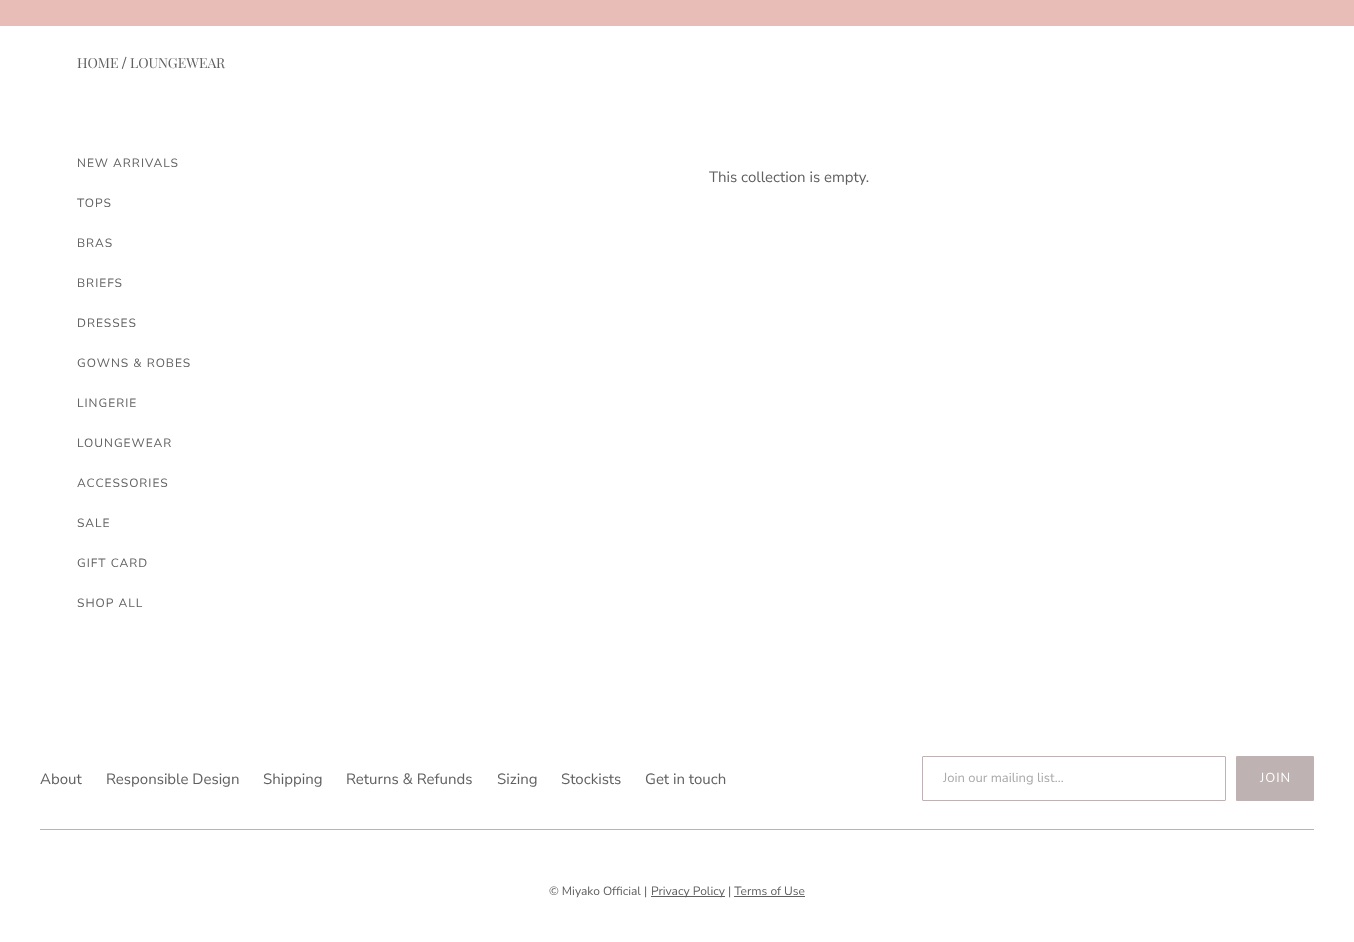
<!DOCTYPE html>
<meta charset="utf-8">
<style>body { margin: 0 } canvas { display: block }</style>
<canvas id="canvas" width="1354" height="942"></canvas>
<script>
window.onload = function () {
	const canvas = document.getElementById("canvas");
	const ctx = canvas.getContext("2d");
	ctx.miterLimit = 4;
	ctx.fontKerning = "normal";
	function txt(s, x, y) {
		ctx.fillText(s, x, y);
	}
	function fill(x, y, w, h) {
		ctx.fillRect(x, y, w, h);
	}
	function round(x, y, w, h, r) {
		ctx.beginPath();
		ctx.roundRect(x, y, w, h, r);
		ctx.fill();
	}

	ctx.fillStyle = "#FFFFFF";
	fill(0, 0, 1354, 942);
	ctx.fillStyle = "#E8BDB8";
	fill(0, 0, 1354, 26);
	ctx.beginPath();
	ctx.roundRect(922.5, 756.5, 303, 44, 0.5);
	ctx.strokeStyle = "#BEB2B2";
	ctx.stroke();
	ctx.fillStyle = "#BEB2B2";
	round(1236, 756, 78, 45, 1);
	fill(40, 829, 1274, 1);
	ctx.fillStyle = "#606060";
	fill(651, 896, 74, 1);
	fill(734, 896, 71, 1);
	ctx.font = "14px Playfair Display";
	txt("HOME", 77, 68);
	ctx.font = "15px Nunito Sans";
	txt("/", 122, 68);
	ctx.font = "14px Playfair Display";
	txt("LOUNGEWEAR", 130, 68);
	ctx.letterSpacing = "1px";
	ctx.font = "12px Nunito Sans";
	txt("NEW ARRIVALS", 77, 167);
	txt("TOPS", 77, 207);
	txt("BRAS", 77, 247);
	txt("BRIEFS", 77, 287);
	txt("DRESSES", 77, 327);
	txt("GOWNS & ROBES", 77, 367);
	txt("LINGERIE", 77, 407);
	txt("LOUNGEWEAR", 77, 447);
	txt("ACCESSORIES", 77, 487);
	txt("SALE", 77, 527);
	txt("GIFT CARD", 77, 567);
	txt("SHOP ALL", 77, 607);
	ctx.letterSpacing = "0px";
	ctx.font = "15px Nunito Sans";
	txt("This collection is empty.", 709, 182);
	txt("About", 40, 784);
	txt("Responsible Design", 106, 784);
	txt("Shipping", 263, 784);
	txt("Returns & Refunds", 346, 784);
	txt("Sizing", 497, 784);
	txt("Stockists", 561, 784);
	txt("Get in touch", 645, 784);
	ctx.font = "13px Nunito Sans";
	ctx.fillStyle = "#A9A9A9";
	txt("Join our mailing list...", 943, 782);
	ctx.letterSpacing = "1px";
	ctx.fillStyle = "#FFFFFF";
	txt("JOIN", 1260, 782);
	ctx.letterSpacing = "0px";
	ctx.font = "12px Nunito Sans";
	ctx.fillStyle = "#606060";
	txt("© Miyako Official |", 549, 895);
	txt("Privacy Policy | Terms of Use", 651, 895);
};
</script>
